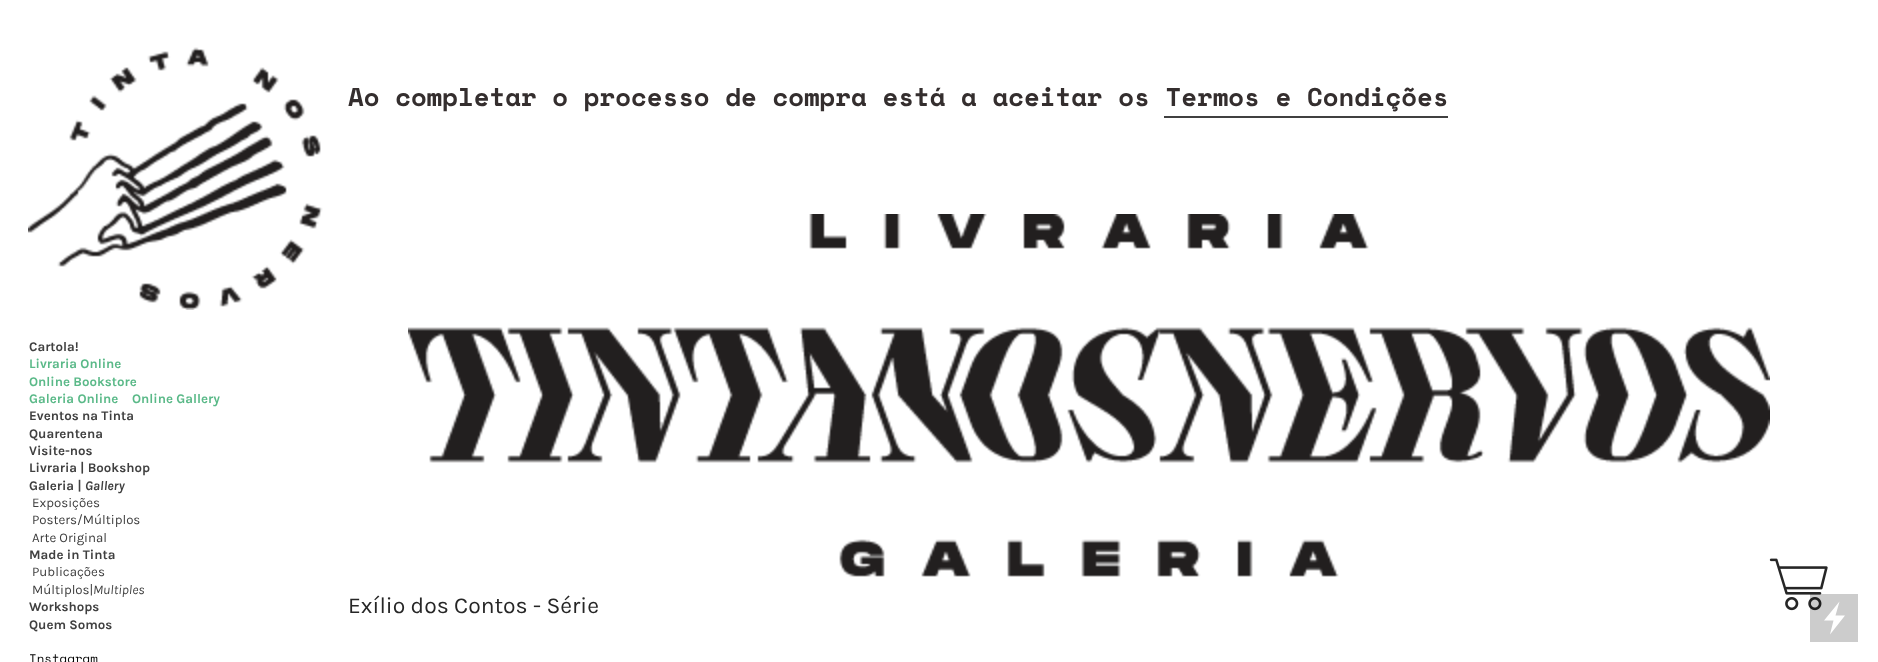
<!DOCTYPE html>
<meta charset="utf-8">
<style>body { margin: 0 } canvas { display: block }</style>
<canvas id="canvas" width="1878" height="662"></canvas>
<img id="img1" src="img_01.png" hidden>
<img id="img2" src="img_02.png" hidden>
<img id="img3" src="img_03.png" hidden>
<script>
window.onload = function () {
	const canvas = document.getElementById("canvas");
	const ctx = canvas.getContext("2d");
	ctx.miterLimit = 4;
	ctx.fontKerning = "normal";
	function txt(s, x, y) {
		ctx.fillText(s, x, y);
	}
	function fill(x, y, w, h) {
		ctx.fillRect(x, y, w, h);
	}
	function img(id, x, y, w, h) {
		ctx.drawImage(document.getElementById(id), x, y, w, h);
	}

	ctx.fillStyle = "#FFFFFF";
	fill(0, 0, 1878, 662);
	ctx.fillStyle = "#404040";
	fill(1164, 116, 284, 2);
	img("img1", 28, 47, 295, 263);
	img("img2", 408, 214, 1362, 363);
	ctx.fillStyle = "#CCCCCC";
	fill(1810, 594, 48, 48);
	ctx.fillStyle = "#FFFFFF";
	ctx.beginPath();
	ctx.moveTo(1845, 615.5);
	ctx.lineTo(1835.5, 615.5);
	ctx.lineTo(1839.5, 601.5);
	ctx.lineTo(1824, 620.5);
	ctx.lineTo(1833.5, 620.5);
	ctx.lineTo(1830, 634.5);
	ctx.closePath();
	ctx.fill();
	img("img3", 1769, 558, 59, 53);
	ctx.font = "bold 25.7px Space Mono";
	ctx.fillStyle = "#342E2E";
	txt("Ao completar o processo de compra está a aceitar os Termos e Condições", 348, 106);
	ctx.font = "bold 13.25px Karla";
	ctx.fillStyle = "#404040";
	txt("Cartola!", 29, 351);
	ctx.fillStyle = "#5AB988";
	txt("Livraria Online", 29, 368);
	txt("Online Bookstore", 29, 386);
	txt("Galeria Online", 29, 403);
	txt("Online Gallery", 132, 403);
	ctx.fillStyle = "#404040";
	txt("Eventos na Tinta", 29, 420);
	txt("Quarentena", 29, 438);
	txt("Visite-nos", 29, 455);
	txt("Livraria | Bookshop", 29, 472);
	txt("Galeria |", 29, 490);
	ctx.font = "italic bold 13.25px Karla";
	txt("Gallery", 85, 490);
	ctx.font = "13.25px Karla";
	txt("Exposições", 32, 507);
	txt("Posters/Múltiplos", 32, 524);
	txt("Arte Original", 32, 542);
	ctx.font = "bold 13.25px Karla";
	txt("Made in Tinta", 29, 559);
	ctx.font = "13.25px Karla";
	txt("Publicações", 32, 576);
	txt("Múltiplos|", 32, 594);
	ctx.font = "italic 13.25px Karla";
	txt("Multiples", 93, 594);
	ctx.font = "bold 13.25px Karla";
	txt("Workshops", 29, 611);
	txt("Quem Somos", 29, 629);
	ctx.font = "12.5px Space Mono";
	ctx.fillStyle = "#000000";
	txt("Instagram", 29, 663);
	ctx.font = "22.9px Karla";
	ctx.fillStyle = "#262626";
	txt("Exílio dos Contos - Série", 348, 613);
};
</script>
